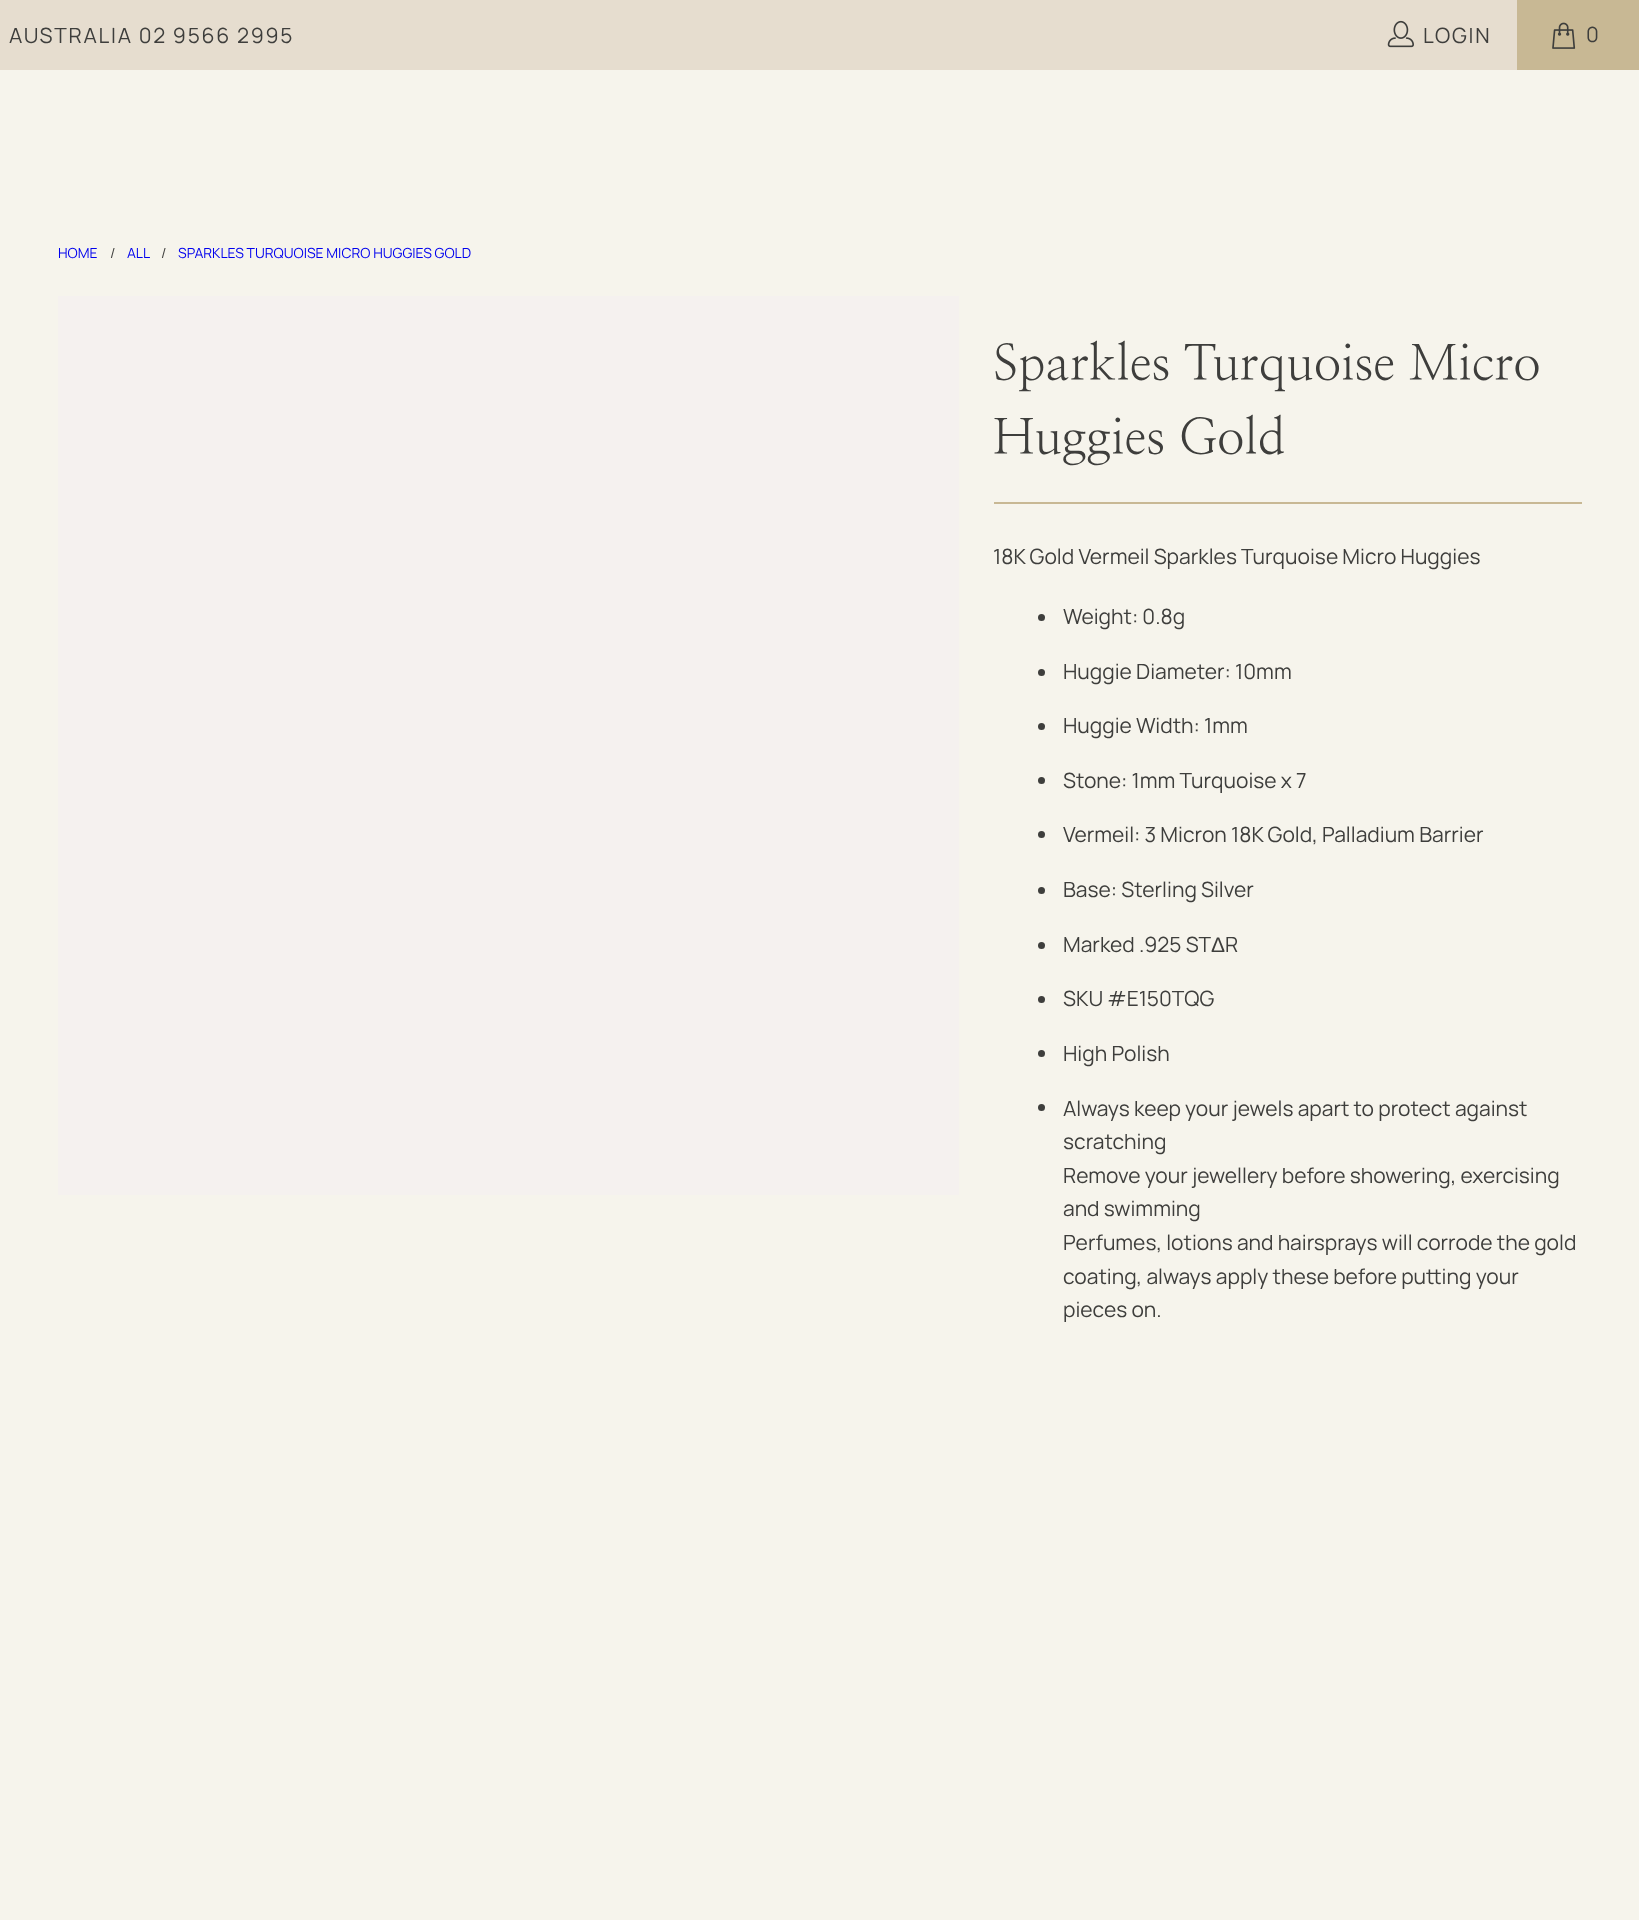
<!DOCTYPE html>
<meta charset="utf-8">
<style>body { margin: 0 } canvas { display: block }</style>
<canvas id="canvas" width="1639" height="1920"></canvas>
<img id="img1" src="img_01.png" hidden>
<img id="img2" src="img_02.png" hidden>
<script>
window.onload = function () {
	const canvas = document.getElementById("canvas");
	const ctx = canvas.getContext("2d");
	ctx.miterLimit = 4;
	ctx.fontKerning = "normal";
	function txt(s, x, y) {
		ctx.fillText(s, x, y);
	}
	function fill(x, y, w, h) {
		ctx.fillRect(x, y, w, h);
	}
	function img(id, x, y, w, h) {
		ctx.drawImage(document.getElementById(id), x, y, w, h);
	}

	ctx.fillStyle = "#F6F4EC";
	fill(0, 0, 1639, 1920);
	ctx.fillStyle = "#E6DDCF";
	fill(0, 0, 1517, 70);
	img("img1", 1387, 20, 27, 28);
	ctx.fillStyle = "#C8B894";
	fill(1517, 0, 122, 70);
	img("img2", 1552, 22, 24, 27);
	ctx.fillStyle = "#F5F1EF";
	fill(58, 296, 901, 899);
	ctx.fillStyle = "#C8B894";
	fill(994, 502, 588, 2);
	ctx.fillStyle = "#3E3E3C";
	ctx.beginPath();
	ctx.arc(1041.5, 617.5, 3.5, 0, Math.PI * 2);
	ctx.fill();
	ctx.beginPath();
	ctx.arc(1041.5, 672.5, 3.5, 0, Math.PI * 2);
	ctx.fill();
	ctx.beginPath();
	ctx.arc(1041.5, 726.5, 3.5, 0, Math.PI * 2);
	ctx.fill();
	ctx.beginPath();
	ctx.arc(1041.5, 780.5, 3.5, 0, Math.PI * 2);
	ctx.fill();
	ctx.beginPath();
	ctx.arc(1041.5, 834.5, 3.5, 0, Math.PI * 2);
	ctx.fill();
	ctx.beginPath();
	ctx.arc(1041.5, 890.5, 3.5, 0, Math.PI * 2);
	ctx.fill();
	ctx.beginPath();
	ctx.arc(1041.5, 945.5, 3.5, 0, Math.PI * 2);
	ctx.fill();
	ctx.beginPath();
	ctx.arc(1041.5, 999.5, 3.5, 0, Math.PI * 2);
	ctx.fill();
	ctx.beginPath();
	ctx.arc(1041.5, 1053.5, 3.5, 0, Math.PI * 2);
	ctx.fill();
	ctx.beginPath();
	ctx.arc(1041.5, 1107.5, 3.5, 0, Math.PI * 2);
	ctx.fill();
	ctx.letterSpacing = "1.75px";
	ctx.font = "21px Manrope";
	txt("AUSTRALIA 02 9566 2995", 9, 43);
	txt("LOGIN", 1423, 43);
	txt("0", 1586, 42);
	ctx.letterSpacing = "0px";
	ctx.font = "14px Manrope";
	ctx.fillStyle = "#0000EE";
	txt("HOME", 58, 258);
	ctx.fillStyle = "#3E3E3C";
	txt("/", 110, 258);
	ctx.fillStyle = "#0000EE";
	txt("ALL", 127, 258);
	ctx.fillStyle = "#3E3E3C";
	txt("/", 161, 258);
	ctx.fillStyle = "#0000EE";
	txt("SPARKLES TURQUOISE MICRO HUGGIES GOLD", 178, 258);
	ctx.font = "49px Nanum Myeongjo";
	ctx.fillStyle = "#3E3E3C";
	txt("Sparkles Turquoise Micro", 993, 380);
	txt("Huggies Gold", 993, 454);
	ctx.font = "21px Manrope";
	txt("18K Gold Vermeil Sparkles Turquoise Micro Huggies", 993, 564);
	txt("Weight: 0.8g", 1063, 624);
	txt("Huggie Diameter: 10mm", 1063, 679);
	txt("Huggie Width: 1mm", 1063, 733);
	txt("Stone: 1mm Turquoise x 7", 1063, 788);
	txt("Vermeil: 3 Micron 18K Gold, Palladium Barrier", 1063, 842);
	txt("Base: Sterling Silver", 1063, 897);
	txt("Marked .925 ST", 1063, 952);
	ctx.font = "21px Liberation Sans";
	txt("Δ", 1211, 952);
	ctx.font = "21px Manrope";
	txt("R", 1225, 952);
	txt("SKU #E150TQG", 1063, 1006);
	txt("High Polish", 1063, 1061);
	txt("Always keep your jewels apart to protect against", 1063, 1116);
	txt("scratching", 1063, 1149);
	txt("Remove your jewellery before showering, exercising", 1063, 1183);
	txt("and swimming", 1063, 1216);
	txt("Perfumes, lotions and hairsprays will corrode the gold", 1063, 1250);
	txt("coating, always apply these before putting your", 1063, 1284);
	txt("pieces on.", 1063, 1317);
};
</script>
